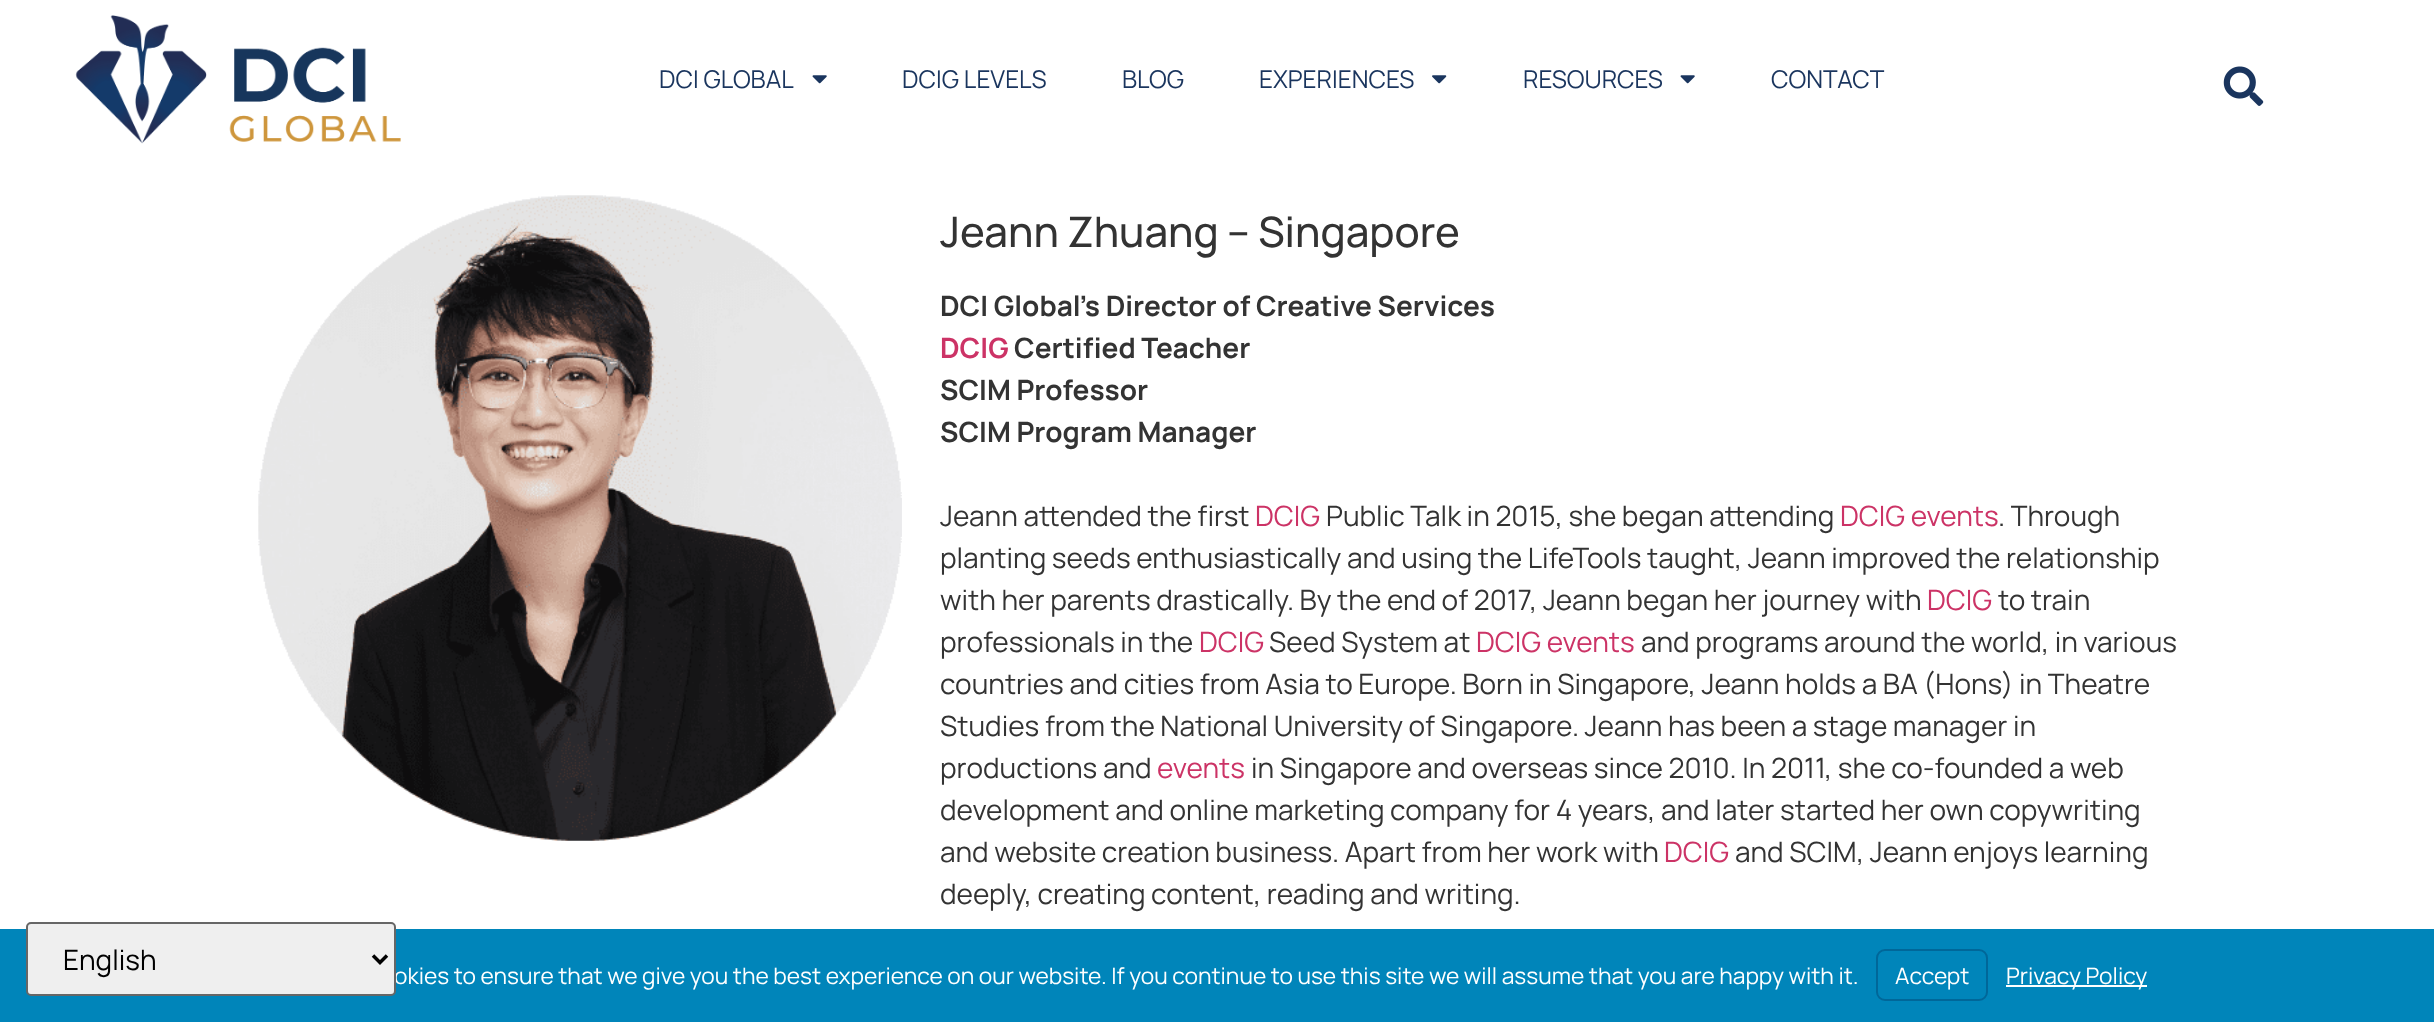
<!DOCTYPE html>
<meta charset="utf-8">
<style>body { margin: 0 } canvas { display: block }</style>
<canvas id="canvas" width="2434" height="1022"></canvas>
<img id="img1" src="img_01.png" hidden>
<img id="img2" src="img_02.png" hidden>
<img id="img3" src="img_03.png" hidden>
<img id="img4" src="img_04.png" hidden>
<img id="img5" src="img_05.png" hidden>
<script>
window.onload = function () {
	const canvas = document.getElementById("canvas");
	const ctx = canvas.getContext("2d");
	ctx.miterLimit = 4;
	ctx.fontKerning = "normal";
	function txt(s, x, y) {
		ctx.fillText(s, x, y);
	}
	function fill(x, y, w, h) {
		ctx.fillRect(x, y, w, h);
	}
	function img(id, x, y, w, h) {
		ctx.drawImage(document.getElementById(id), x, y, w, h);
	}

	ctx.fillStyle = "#FFFFFF";
	fill(0, 0, 2434, 1022);
	img("img1", 75, 15, 326, 129);
	img("img2", 812, 75, 15, 9);
	img("img3", 1432, 75, 15, 9);
	img("img2", 1680, 75, 15, 9);
	img("img4", 2223, 66, 41, 40);
	img("img5", 258, 195, 644, 646);
	ctx.fillStyle = "#0085BA";
	fill(0, 929, 2434, 93);
	ctx.beginPath();
	ctx.roundRect(1877, 950, 110, 50, 8);
	ctx.strokeStyle = "#006799";
	ctx.lineWidth = 2;
	ctx.stroke();
	ctx.fillStyle = "#FFFFFF";
	fill(2006, 985, 141, 2);
	ctx.font = "24.5px Manrope";
	ctx.fillStyle = "#1A355E";
	txt("DCI GLOBAL", 659, 88);
	txt("DCIG LEVELS", 902, 88);
	txt("BLOG", 1122, 88);
	txt("EXPERIENCES", 1259, 88);
	txt("RESOURCES", 1523, 88);
	txt("CONTACT", 1771, 88);
	ctx.font = "500 42px Manrope";
	ctx.fillStyle = "#333333";
	txt("Jeann Zhuang – Singapore", 940, 247);
	ctx.font = "bold 28px Manrope";
	txt("DCI Global’s Director of Creative Services", 940, 316);
	ctx.fillStyle = "#CC3366";
	txt("DCIG", 940, 358);
	ctx.fillStyle = "#333333";
	txt("Certified Teacher", 1014, 358);
	txt("SCIM Professor", 940, 400);
	txt("SCIM Program Manager", 940, 442);
	ctx.font = "28px Manrope";
	txt("Jeann attended the first", 940, 526);
	ctx.fillStyle = "#CC3366";
	txt("DCIG", 1255, 526);
	ctx.fillStyle = "#333333";
	txt("Public Talk in 2015, she began attending", 1326, 526);
	ctx.fillStyle = "#CC3366";
	txt("DCIG events", 1840, 526);
	ctx.fillStyle = "#333333";
	txt(". Through", 1998, 526);
	txt("planting seeds enthusiastically and using the LifeTools taught, Jeann improved the relationship", 940, 568);
	txt("with her parents drastically. By the end of 2017, Jeann began her journey with", 940, 610);
	ctx.fillStyle = "#CC3366";
	txt("DCIG", 1927, 610);
	ctx.fillStyle = "#333333";
	txt("to train", 1998, 610);
	txt("professionals in the", 940, 652);
	ctx.fillStyle = "#CC3366";
	txt("DCIG", 1199, 652);
	ctx.fillStyle = "#333333";
	txt("Seed System at", 1269, 652);
	ctx.fillStyle = "#CC3366";
	txt("DCIG events", 1476, 652);
	ctx.fillStyle = "#333333";
	txt("and programs around the world, in various", 1641, 652);
	txt("countries and cities from Asia to Europe. Born in Singapore, Jeann holds a BA (Hons) in Theatre", 940, 694);
	txt("Studies from the National University of Singapore. Jeann has been a stage manager in", 940, 736);
	txt("productions and", 940, 778);
	ctx.fillStyle = "#CC3366";
	txt("events", 1157, 778);
	ctx.fillStyle = "#333333";
	txt("in Singapore and overseas since 2010. In 2011, she co-founded a web", 1251, 778);
	txt("development and online marketing company for 4 years, and later started her own copywriting", 940, 820);
	txt("and website creation business. Apart from her work with", 940, 862);
	ctx.fillStyle = "#CC3366";
	txt("DCIG", 1664, 862);
	ctx.fillStyle = "#333333";
	txt("and SCIM, Jeann enjoys learning", 1735, 862);
	txt("deeply, creating content, reading and writing.", 940, 904);
	ctx.font = "22.75px Manrope";
	ctx.fillStyle = "#FFFFFF";
	txt("okies to ensure that we give you the best experience on our website. If you continue to use this site we will assume that you are happy with it.", 394, 984);
	ctx.fillStyle = "#EFEFEF";
	ctx.beginPath();
	ctx.roundRect(27, 923, 368, 72, 4);
	ctx.fill();
	ctx.strokeStyle = "#666666";
	ctx.stroke();
	ctx.font = "28px Manrope";
	ctx.fillStyle = "#000000";
	txt("English", 63, 970);
	ctx.beginPath();
	ctx.moveTo(373, 955.5);
	ctx.lineTo(380, 962.5);
	ctx.lineTo(387, 955.5);
	ctx.strokeStyle = "#000000";
	ctx.lineWidth = 3.5;
	ctx.stroke();
	ctx.font = "22.75px Manrope";
	ctx.fillStyle = "#FFFFFF";
	txt("Accept", 1895, 984);
	txt("Privacy Policy", 2006, 984);
};
</script>
